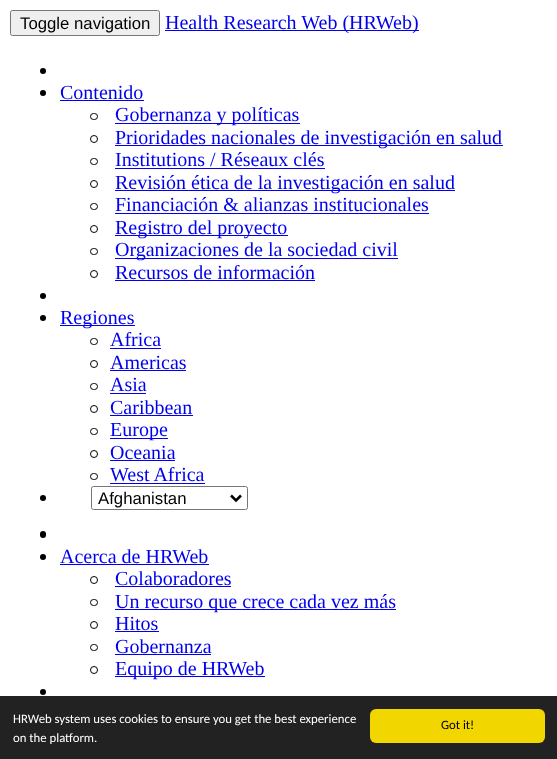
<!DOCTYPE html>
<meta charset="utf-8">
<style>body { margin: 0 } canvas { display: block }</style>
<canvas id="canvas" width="557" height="759"></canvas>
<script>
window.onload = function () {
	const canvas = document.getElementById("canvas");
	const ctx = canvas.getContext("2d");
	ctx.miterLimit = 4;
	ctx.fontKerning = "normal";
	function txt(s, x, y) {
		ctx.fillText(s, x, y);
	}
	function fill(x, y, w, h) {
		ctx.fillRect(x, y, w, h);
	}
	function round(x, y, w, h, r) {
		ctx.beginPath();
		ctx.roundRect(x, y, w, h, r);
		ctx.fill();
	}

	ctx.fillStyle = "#FFFFFF";
	fill(0, 0, 557, 759);
	ctx.fillStyle = "#EFEFEF";
	ctx.beginPath();
	ctx.roundRect(10.5, 10.5, 149, 25, 2);
	ctx.fill();
	ctx.strokeStyle = "#767676";
	ctx.stroke();
	ctx.fillStyle = "#0000EE";
	fill(165, 30, 254, 1);
	ctx.fillStyle = "#000000";
	ctx.beginPath();
	ctx.arc(43, 71, 3, 0, Math.PI * 2);
	ctx.fill();
	ctx.beginPath();
	ctx.arc(43, 93, 3, 0, Math.PI * 2);
	ctx.fill();
	ctx.fillStyle = "#0000EE";
	fill(60, 100, 84, 1);
	ctx.beginPath();
	ctx.roundRect(90.5, 113.5, 7, 6, 3);
	ctx.strokeStyle = "#000000";
	ctx.stroke();
	fill(115, 123, 185, 1);
	ctx.beginPath();
	ctx.arc(94, 139, 3.5, 0, Math.PI * 2);
	ctx.stroke();
	fill(115, 145, 388, 1);
	ctx.beginPath();
	ctx.roundRect(90.5, 158.5, 7, 6, 3);
	ctx.stroke();
	fill(115, 168, 210, 1);
	ctx.beginPath();
	ctx.arc(94, 184, 3.5, 0, Math.PI * 2);
	ctx.stroke();
	fill(115, 190, 340, 1);
	ctx.beginPath();
	ctx.roundRect(90.5, 203.5, 7, 6, 3);
	ctx.stroke();
	fill(115, 213, 314, 1);
	ctx.beginPath();
	ctx.arc(94, 229, 3.5, 0, Math.PI * 2);
	ctx.stroke();
	fill(115, 235, 173, 1);
	ctx.beginPath();
	ctx.roundRect(90.5, 248.5, 7, 6, 3);
	ctx.stroke();
	fill(115, 258, 283, 1);
	ctx.beginPath();
	ctx.arc(94, 274, 3.5, 0, Math.PI * 2);
	ctx.stroke();
	fill(115, 280, 200, 1);
	ctx.fillStyle = "#000000";
	ctx.beginPath();
	ctx.arc(43, 296, 3, 0, Math.PI * 2);
	ctx.fill();
	ctx.beginPath();
	ctx.arc(43, 318, 3, 0, Math.PI * 2);
	ctx.fill();
	ctx.fillStyle = "#0000EE";
	fill(60, 325, 75, 1);
	ctx.beginPath();
	ctx.roundRect(90.5, 338.5, 7, 6, 3);
	ctx.stroke();
	fill(110, 348, 51, 1);
	ctx.beginPath();
	ctx.arc(94, 364, 3.5, 0, Math.PI * 2);
	ctx.stroke();
	fill(110, 370, 76, 1);
	ctx.beginPath();
	ctx.roundRect(90.5, 383.5, 7, 6, 3);
	ctx.stroke();
	fill(110, 393, 36, 1);
	ctx.beginPath();
	ctx.arc(94, 409, 3.5, 0, Math.PI * 2);
	ctx.stroke();
	fill(110, 415, 83, 1);
	ctx.beginPath();
	ctx.roundRect(90.5, 428.5, 7, 6, 3);
	ctx.stroke();
	fill(110, 438, 58, 1);
	ctx.beginPath();
	ctx.arc(94, 454, 3.5, 0, Math.PI * 2);
	ctx.stroke();
	fill(110, 460, 65, 1);
	ctx.beginPath();
	ctx.roundRect(90.5, 473.5, 7, 6, 3);
	ctx.stroke();
	fill(110, 483, 95, 1);
	ctx.fillStyle = "#000000";
	ctx.beginPath();
	ctx.arc(43, 498, 3, 0, Math.PI * 2);
	ctx.fill();
	ctx.beginPath();
	ctx.roundRect(91.5, 486.5, 156, 23, 2);
	ctx.strokeStyle = "#767676";
	ctx.stroke();
	ctx.beginPath();
	ctx.moveTo(231, 495.5);
	ctx.lineTo(236, 500.5);
	ctx.lineTo(241, 495.5);
	ctx.strokeStyle = "#000000";
	ctx.lineWidth = 2.5;
	ctx.stroke();
	round(40, 531, 6, 7, 3);
	ctx.beginPath();
	ctx.arc(43, 557, 3, 0, Math.PI * 2);
	ctx.fill();
	ctx.fillStyle = "#0000EE";
	fill(60, 564, 149, 1);
	ctx.beginPath();
	ctx.arc(94, 580, 3.5, 0, Math.PI * 2);
	ctx.lineWidth = 1;
	ctx.stroke();
	fill(115, 586, 116, 1);
	ctx.beginPath();
	ctx.roundRect(90.5, 599.5, 7, 6, 3);
	ctx.stroke();
	fill(115, 609, 281, 1);
	ctx.beginPath();
	ctx.arc(94, 625, 3.5, 0, Math.PI * 2);
	ctx.stroke();
	fill(115, 631, 44, 1);
	ctx.beginPath();
	ctx.roundRect(90.5, 644.5, 7, 6, 3);
	ctx.stroke();
	fill(115, 654, 96, 1);
	ctx.beginPath();
	ctx.arc(94, 670, 3.5, 0, Math.PI * 2);
	ctx.stroke();
	fill(115, 676, 150, 1);
	ctx.fillStyle = "#000000";
	ctx.beginPath();
	ctx.arc(43, 692, 3, 0, Math.PI * 2);
	ctx.fill();
	ctx.fillStyle = "#222222";
	fill(0, 696, 557, 63);
	ctx.fillStyle = "#F1D600";
	round(370, 709, 175, 34, 6);
	ctx.font = "16.75px Liberation Sans";
	ctx.fillStyle = "#000000";
	txt("Toggle navigation", 20, 29);
	ctx.font = "20px Liberation Serif";
	ctx.fillStyle = "#0000EE";
	txt("Health Research Web (HRWeb)", 165, 29);
	txt("Contenido", 60, 99);
	txt("Gobernanza y políticas", 115, 121);
	txt("Prioridades nacionales de investigación en salud", 115, 144);
	txt("Institutions / Réseaux clés", 115, 166);
	txt("Revisión ética de la investigación en salud", 115, 189);
	txt("Financiación & alianzas institucionales", 115, 211);
	txt("Registro del proyecto", 115, 234);
	txt("Organizaciones de la sociedad civil", 115, 256);
	txt("Recursos de información", 115, 279);
	txt("Regiones", 60, 324);
	txt("Africa", 110, 346);
	txt("Americas", 110, 369);
	txt("Asia", 110, 391);
	txt("Caribbean", 110, 414);
	txt("Europe", 110, 436);
	txt("Oceania", 110, 459);
	txt("West Africa", 110, 481);
	ctx.font = "16.75px Liberation Sans";
	ctx.fillStyle = "#000000";
	txt("Afghanistan", 98, 504);
	ctx.font = "20px Liberation Serif";
	ctx.fillStyle = "#0000EE";
	txt("Acerca de HRWeb", 60, 563);
	txt("Colaboradores", 115, 585);
	txt("Un recurso que crece cada vez más", 115, 608);
	txt("Hitos", 115, 630);
	txt("Gobernanza", 115, 653);
	txt("Equipo de HRWeb", 115, 675);
	ctx.font = "12.75px Carlito";
	ctx.fillStyle = "#FFFFFF";
	txt("HRWeb system uses cookies to ensure you get the best experience", 13, 723);
	txt("on the platform.", 13, 742);
	ctx.fillStyle = "#000000";
	txt("Got it!", 441, 729);
};
</script>
